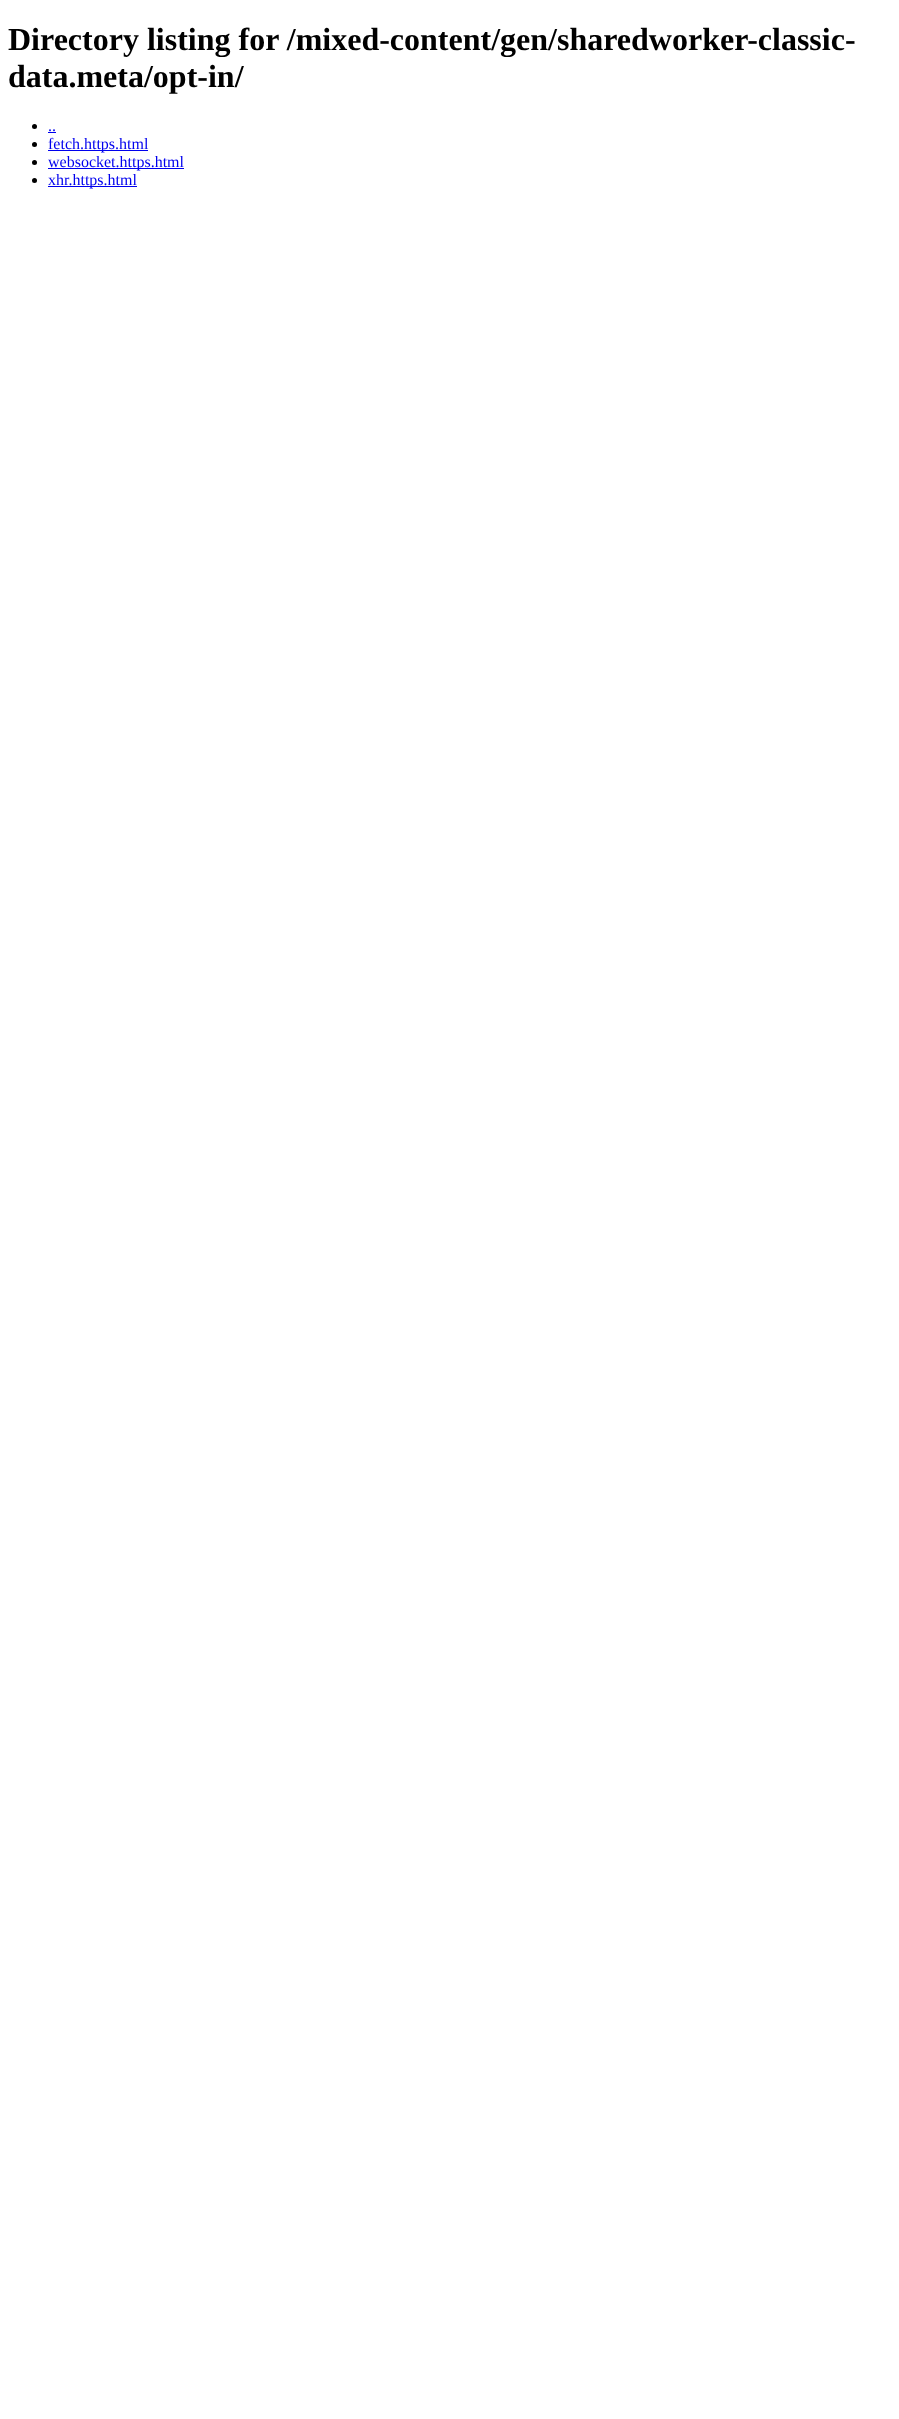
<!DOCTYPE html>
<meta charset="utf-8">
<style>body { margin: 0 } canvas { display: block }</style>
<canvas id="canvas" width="899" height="2419"></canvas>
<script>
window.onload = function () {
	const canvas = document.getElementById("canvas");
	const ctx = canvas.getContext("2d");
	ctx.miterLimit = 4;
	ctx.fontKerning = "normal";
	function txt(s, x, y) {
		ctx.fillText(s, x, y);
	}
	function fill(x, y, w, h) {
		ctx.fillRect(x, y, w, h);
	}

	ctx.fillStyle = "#FFFFFF";
	fill(0, 0, 899, 2419);
	ctx.fillStyle = "#000000";
	ctx.beginPath();
	ctx.arc(34.5, 126.5, 2.5, 0, Math.PI * 2);
	ctx.fill();
	ctx.fillStyle = "#0000EE";
	fill(48, 132, 8, 1);
	ctx.fillStyle = "#000000";
	ctx.beginPath();
	ctx.arc(34.5, 144.5, 2.5, 0, Math.PI * 2);
	ctx.fill();
	ctx.fillStyle = "#0000EE";
	fill(48, 150, 100, 1);
	ctx.fillStyle = "#000000";
	ctx.beginPath();
	ctx.arc(34.5, 162.5, 2.5, 0, Math.PI * 2);
	ctx.fill();
	ctx.fillStyle = "#0000EE";
	fill(48, 168, 136, 1);
	ctx.fillStyle = "#000000";
	ctx.beginPath();
	ctx.arc(34.5, 180.5, 2.5, 0, Math.PI * 2);
	ctx.fill();
	ctx.fillStyle = "#0000EE";
	fill(48, 186, 89, 1);
	ctx.font = "bold 32px Liberation Serif";
	ctx.fillStyle = "#000000";
	txt("Directory listing for /mixed-content/gen/sharedworker-classic-", 8, 50);
	txt("data.meta/opt-in/", 8, 87);
	ctx.font = "16px Liberation Serif";
	ctx.fillStyle = "#0000EE";
	txt("..", 48, 131);
	txt("fetch.https.html", 48, 149);
	txt("websocket.https.html", 48, 167);
	txt("xhr.https.html", 48, 185);
};
</script>
